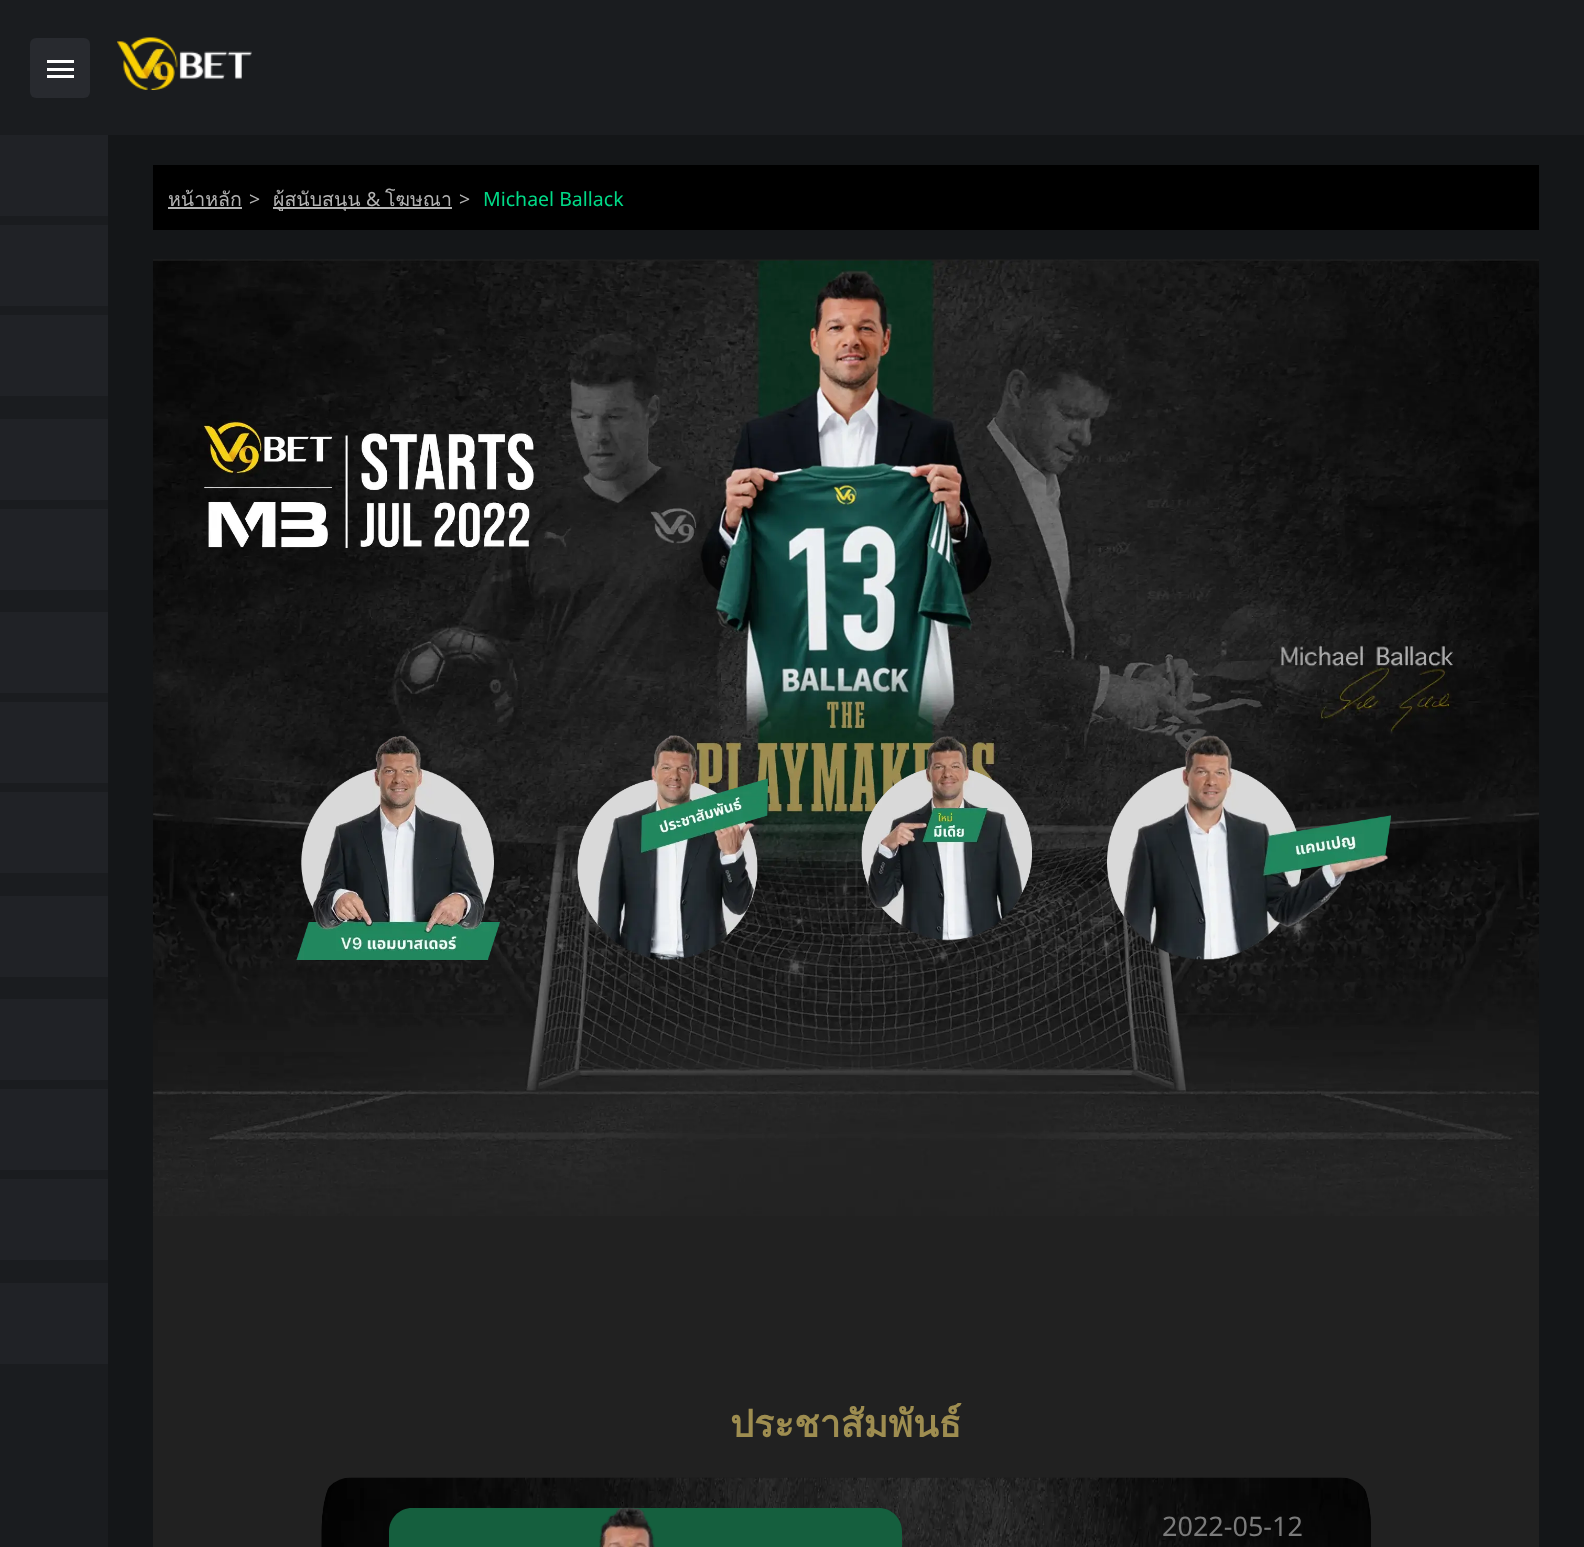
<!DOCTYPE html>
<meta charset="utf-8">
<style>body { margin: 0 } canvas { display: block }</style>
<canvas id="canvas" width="1584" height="1547"></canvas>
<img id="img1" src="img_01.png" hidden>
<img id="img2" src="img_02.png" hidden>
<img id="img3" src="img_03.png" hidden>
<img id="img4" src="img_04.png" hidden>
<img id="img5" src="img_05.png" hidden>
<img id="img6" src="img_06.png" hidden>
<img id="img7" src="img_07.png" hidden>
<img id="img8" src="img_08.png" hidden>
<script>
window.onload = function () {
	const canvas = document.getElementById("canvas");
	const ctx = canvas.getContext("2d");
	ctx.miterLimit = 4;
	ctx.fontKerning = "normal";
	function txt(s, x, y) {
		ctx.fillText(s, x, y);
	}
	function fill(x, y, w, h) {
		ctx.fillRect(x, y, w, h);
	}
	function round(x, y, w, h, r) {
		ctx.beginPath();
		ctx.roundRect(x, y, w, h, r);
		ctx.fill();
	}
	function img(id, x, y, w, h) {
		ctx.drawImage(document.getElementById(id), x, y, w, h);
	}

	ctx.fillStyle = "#141618";
	fill(0, 0, 1584, 1547);
	ctx.fillStyle = "#1A1C1F";
	fill(0, 0, 1584, 135);
	ctx.fillStyle = "#282A2F";
	round(30, 38, 60, 60, 6);
	ctx.fillStyle = "#FFFFFF";
	fill(47, 60, 27, 3);
	fill(47, 68, 27, 3);
	fill(47, 75, 27, 3);
	img("img1", 117, 37, 135, 53);
	ctx.fillStyle = "#1A1C1F";
	fill(0, 216, 108, 1331);
	ctx.fillStyle = "#202226";
	fill(0, 135, 108, 81);
	fill(0, 225, 108, 81);
	fill(0, 315, 108, 81);
	fill(0, 419, 108, 81);
	fill(0, 509, 108, 81);
	fill(0, 612, 108, 81);
	fill(0, 702, 108, 81);
	fill(0, 792, 108, 81);
	fill(0, 896, 108, 81);
	fill(0, 999, 108, 81);
	fill(0, 1089, 108, 81);
	fill(0, 1179, 108, 81);
	fill(0, 1283, 108, 81);
	ctx.fillStyle = "#000000";
	fill(153, 165, 1386, 65);
	ctx.fillStyle = "#B3B3B3";
	fill(168, 207, 74, 2);
	fill(273, 207, 179, 2);
	ctx.fillStyle = "#212121";
	fill(153, 1216, 1386, 331);
	img("img2", 153, 259, 1386, 957);
	img("img3", 296, 735, 204, 225);
	img("img4", 577, 735, 191, 225);
	img("img5", 861, 735, 171, 206);
	img("img6", 1107, 735, 284, 225);
	img("img7", 321, 1477, 1050, 70);
	ctx.fillStyle = "#155F3E";
	ctx.beginPath();
	ctx.moveTo(412, 1508);
	ctx.lineTo(879, 1508);
	ctx.bezierCurveTo(891.5, 1508, 902, 1518.5, 902, 1531);
	ctx.lineTo(902, 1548);
	ctx.lineTo(389, 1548);
	ctx.lineTo(389, 1531);
	ctx.bezierCurveTo(389, 1518.5, 399.5, 1508, 412, 1508);
	ctx.closePath();
	ctx.fill();
	img("img8", 599, 1507, 56, 40);
	ctx.font = "19.5px Loma";
	ctx.fillStyle = "#B3B3B3";
	txt("หน้าหลัก", 168, 206);
	ctx.font = "19.5px Noto Sans";
	txt(">", 249, 206);
	ctx.font = "19.5px Loma";
	txt("ผู้สนับสนุน", 273, 206);
	ctx.font = "19.5px Noto Sans";
	txt("&", 366, 206);
	ctx.font = "19.5px Loma";
	txt("โฆษณา", 385, 206);
	ctx.font = "19.5px Noto Sans";
	txt(">", 459, 206);
	ctx.fillStyle = "#00DA87";
	txt("Michael Ballack", 483, 206);
	ctx.font = "bold 37.5px Loma";
	ctx.fillStyle = "#9E8D50";
	txt("ประชาสัมพันธ์", 730, 1437);
	ctx.font = "27px Noto Sans";
	ctx.fillStyle = "#7B7B7B";
	txt("2022-05-12", 1162, 1536);
};
</script>
